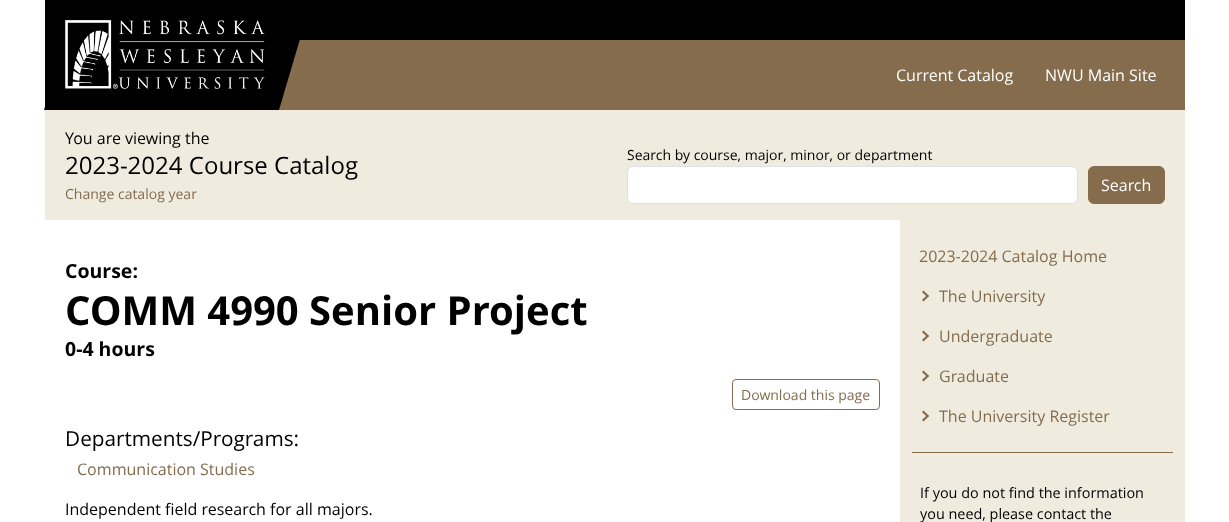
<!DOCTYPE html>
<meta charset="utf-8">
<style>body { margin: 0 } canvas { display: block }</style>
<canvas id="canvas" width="1229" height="522"></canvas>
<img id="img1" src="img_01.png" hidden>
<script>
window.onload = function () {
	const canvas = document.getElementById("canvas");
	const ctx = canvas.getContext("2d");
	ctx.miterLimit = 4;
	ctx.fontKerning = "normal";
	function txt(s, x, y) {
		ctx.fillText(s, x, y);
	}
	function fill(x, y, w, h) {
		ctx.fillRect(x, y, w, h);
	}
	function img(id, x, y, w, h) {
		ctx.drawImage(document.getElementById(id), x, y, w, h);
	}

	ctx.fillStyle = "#FFFFFF";
	fill(0, 0, 1229, 522);
	ctx.fillStyle = "#000000";
	fill(45, 0, 1140, 40);
	ctx.fillStyle = "#846C4D";
	fill(279, 40, 906, 70);
	ctx.fillStyle = "#000000";
	fill(45, 40, 20, 67);
	ctx.beginPath();
	ctx.moveTo(65, 39);
	ctx.lineTo(300, 39);
	ctx.lineTo(279, 110);
	ctx.lineTo(44, 110);
	ctx.closePath();
	ctx.fill();
	img("img1", 65, 20, 200, 69);
	ctx.fillStyle = "#EFECDF";
	fill(45, 110, 1140, 110);
	ctx.fillStyle = "#FFFFFF";
	ctx.beginPath();
	ctx.roundRect(627.5, 166.5, 450, 37, 5.5);
	ctx.fill();
	ctx.strokeStyle = "#DEE2E6";
	ctx.stroke();
	ctx.fillStyle = "#846C4D";
	ctx.beginPath();
	ctx.roundRect(1088.5, 166.5, 76, 37, 5.5);
	ctx.fill();
	ctx.strokeStyle = "#846C4D";
	ctx.stroke();
	ctx.beginPath();
	ctx.roundRect(732.5, 379.5, 147, 30, 3.5);
	ctx.stroke();
	ctx.fillStyle = "#EFECDF";
	fill(900, 220, 285, 302);
	ctx.fillStyle = "#846C4D";
	fill(912, 452, 261, 1);
	ctx.beginPath();
	ctx.moveTo(922, 292);
	ctx.lineTo(923.5, 290.5);
	ctx.lineTo(929, 296);
	ctx.lineTo(927.5, 297.5);
	ctx.closePath();
	ctx.fill();
	ctx.beginPath();
	ctx.moveTo(922, 300);
	ctx.lineTo(927.5, 294.5);
	ctx.lineTo(929, 296);
	ctx.lineTo(923.5, 301.5);
	ctx.closePath();
	ctx.fill();
	ctx.beginPath();
	ctx.moveTo(922, 332);
	ctx.lineTo(923.5, 330.5);
	ctx.lineTo(929, 336);
	ctx.lineTo(927.5, 337.5);
	ctx.closePath();
	ctx.fill();
	ctx.beginPath();
	ctx.moveTo(922, 340);
	ctx.lineTo(927.5, 334.5);
	ctx.lineTo(929, 336);
	ctx.lineTo(923.5, 341.5);
	ctx.closePath();
	ctx.fill();
	ctx.beginPath();
	ctx.moveTo(922, 372);
	ctx.lineTo(923.5, 370.5);
	ctx.lineTo(929, 376);
	ctx.lineTo(927.5, 377.5);
	ctx.closePath();
	ctx.fill();
	ctx.beginPath();
	ctx.moveTo(922, 380);
	ctx.lineTo(927.5, 374.5);
	ctx.lineTo(929, 376);
	ctx.lineTo(923.5, 381.5);
	ctx.closePath();
	ctx.fill();
	ctx.beginPath();
	ctx.moveTo(922, 412);
	ctx.lineTo(923.5, 410.5);
	ctx.lineTo(929, 416);
	ctx.lineTo(927.5, 417.5);
	ctx.closePath();
	ctx.fill();
	ctx.beginPath();
	ctx.moveTo(922, 420);
	ctx.lineTo(927.5, 414.5);
	ctx.lineTo(929, 416);
	ctx.lineTo(923.5, 421.5);
	ctx.closePath();
	ctx.fill();
	ctx.font = "16px Open Sans";
	ctx.fillStyle = "#FFFFFF";
	txt("Current Catalog", 896, 81);
	txt("NWU Main Site", 1045, 81);
	ctx.fillStyle = "#000000";
	txt("You are viewing the", 65, 144);
	ctx.font = "24px Open Sans";
	txt("2023-2024 Course Catalog", 65, 174);
	ctx.font = "14px Open Sans";
	ctx.fillStyle = "#846C4D";
	txt("Change catalog year", 65, 199);
	ctx.fillStyle = "#000000";
	txt("Search by course, major, minor, or department", 627, 160);
	ctx.font = "16px Open Sans";
	ctx.fillStyle = "#FFFFFF";
	txt("Search", 1101, 191);
	ctx.font = "bold 19.5px Open Sans";
	ctx.fillStyle = "#000000";
	txt("Course:", 65, 278);
	ctx.font = "bold 40px Open Sans";
	txt("COMM 4990 Senior Project", 65, 325);
	ctx.font = "bold 19.5px Open Sans";
	txt("0-4 hours", 65, 356);
	ctx.font = "14px Open Sans";
	ctx.fillStyle = "#846C4D";
	txt("Download this page", 741, 400);
	ctx.font = "20.75px Open Sans";
	ctx.fillStyle = "#000000";
	txt("Departments/Programs:", 65, 446);
	ctx.font = "16px Open Sans";
	ctx.fillStyle = "#846C4D";
	txt("Communication Studies", 77, 475);
	ctx.fillStyle = "#000000";
	txt("Independent field research for all majors.", 65, 515);
	ctx.fillStyle = "#846C4D";
	txt("2023-2024 Catalog Home", 919, 262);
	txt("The University", 939, 302);
	txt("Undergraduate", 939, 342);
	txt("Graduate", 939, 382);
	txt("The University Register", 939, 422);
	ctx.font = "14.4px Open Sans";
	ctx.fillStyle = "#000000";
	txt("If you do not find the information", 920, 498);
	txt("you need, please contact the", 920, 519);
};
</script>
